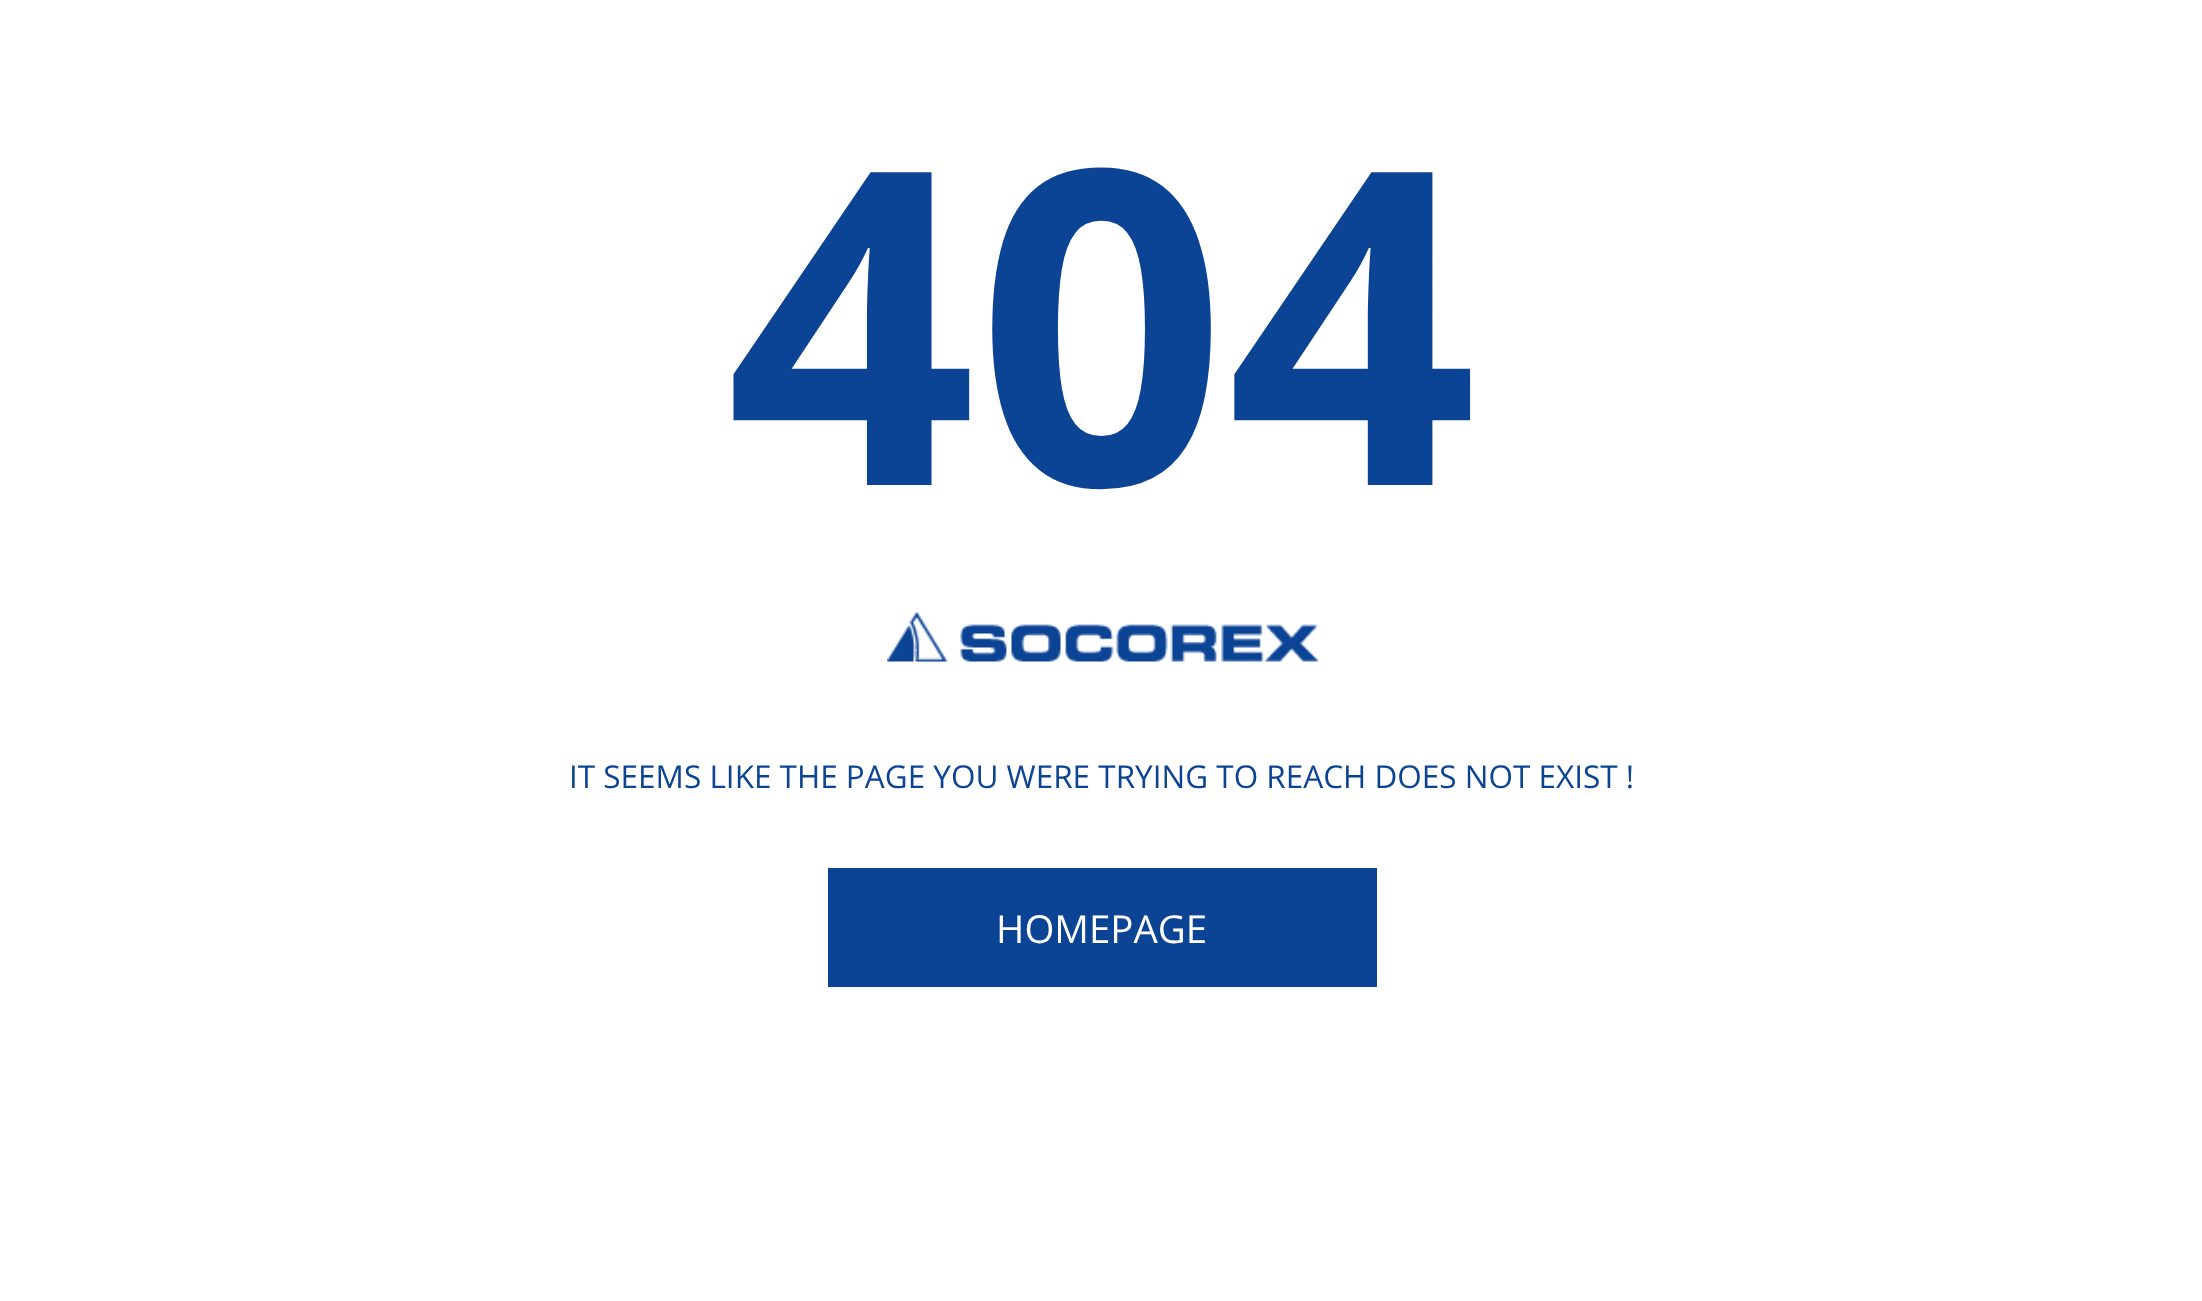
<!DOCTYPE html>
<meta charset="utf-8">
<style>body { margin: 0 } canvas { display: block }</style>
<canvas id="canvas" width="2202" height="1301"></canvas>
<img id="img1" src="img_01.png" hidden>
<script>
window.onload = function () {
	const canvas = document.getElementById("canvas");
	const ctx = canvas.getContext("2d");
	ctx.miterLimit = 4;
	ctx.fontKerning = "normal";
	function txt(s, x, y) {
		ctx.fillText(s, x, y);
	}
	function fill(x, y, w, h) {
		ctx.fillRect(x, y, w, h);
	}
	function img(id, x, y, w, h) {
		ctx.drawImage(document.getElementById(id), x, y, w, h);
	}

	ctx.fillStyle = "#FFFFFF";
	fill(0, 0, 2202, 1301);
	img("img1", 887, 612, 431, 50);
	ctx.fillStyle = "#0B4395";
	fill(828, 868, 549, 119);
	ctx.font = "bold 438px Open Sans";
	txt("404", 726, 485);
	ctx.font = "31.5px Open Sans";
	txt("IT SEEMS LIKE THE PAGE YOU WERE TRYING TO REACH DOES NOT EXIST !", 569, 788);
	ctx.font = "38.5px Open Sans";
	ctx.fillStyle = "#FFFFFF";
	txt("HOMEPAGE", 996, 943);
};
</script>
